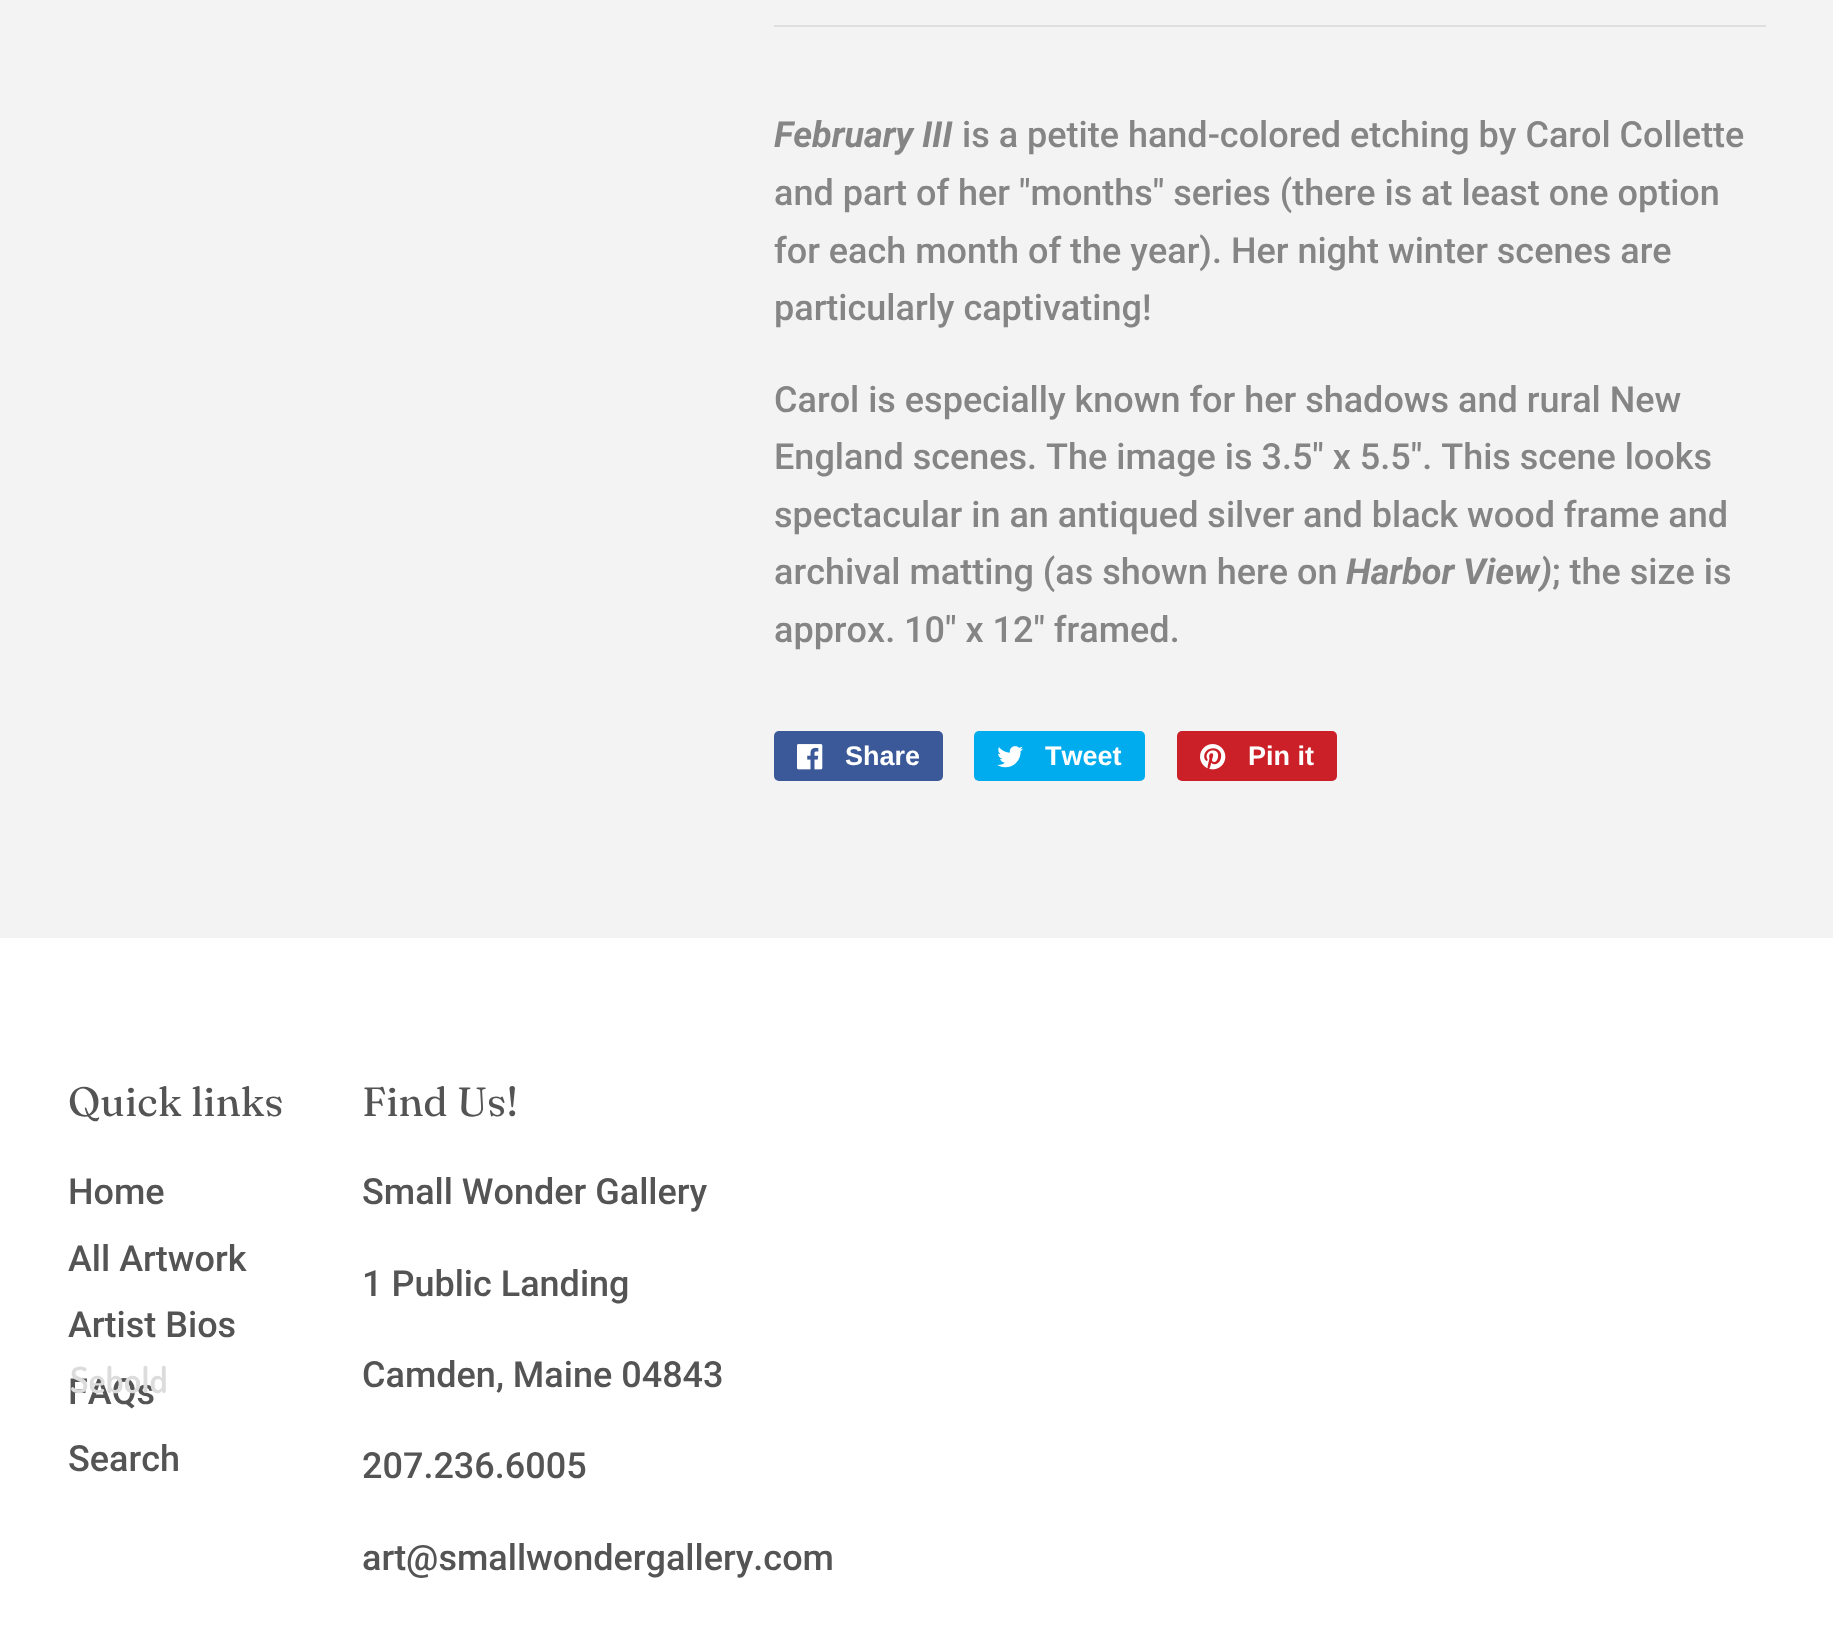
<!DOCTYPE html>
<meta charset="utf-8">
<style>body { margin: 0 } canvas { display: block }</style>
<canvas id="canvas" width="1833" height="1627"></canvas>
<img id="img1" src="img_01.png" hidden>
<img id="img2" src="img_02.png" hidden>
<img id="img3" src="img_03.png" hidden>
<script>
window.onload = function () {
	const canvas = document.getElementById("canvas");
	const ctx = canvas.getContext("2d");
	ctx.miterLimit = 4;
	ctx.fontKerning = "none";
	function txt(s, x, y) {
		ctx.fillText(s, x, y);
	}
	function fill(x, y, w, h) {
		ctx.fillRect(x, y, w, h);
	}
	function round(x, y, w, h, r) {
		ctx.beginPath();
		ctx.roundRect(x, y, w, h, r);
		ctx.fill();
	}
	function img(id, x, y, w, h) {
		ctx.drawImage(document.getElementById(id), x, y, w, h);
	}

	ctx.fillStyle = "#F3F3F3";
	fill(0, 0, 1833, 1627);
	ctx.fillStyle = "#DEDEDE";
	fill(774, 25, 992, 2);
	ctx.fillStyle = "#3B5998";
	round(774, 731, 169, 50, 5);
	img("img1", 797, 744, 26, 26);
	ctx.fillStyle = "#00ACED";
	round(974, 731, 171, 50, 5);
	img("img2", 997, 746, 26, 22);
	ctx.fillStyle = "#CB2027";
	round(1177, 731, 160, 50, 5);
	img("img3", 1200, 744, 26, 26);
	ctx.fillStyle = "#FFFFFF";
	fill(0, 938, 1833, 689);
	ctx.font = "italic bold 36px Roboto";
	ctx.fillStyle = "#858585";
	txt("February III", 774, 147);
	ctx.font = "500 36px Roboto";
	txt("is a petite hand-colored etching by Carol Collette", 962, 147);
	txt("and part of her \"months\" series (there is at least one option", 774, 205);
	txt("for each month of the year). Her night winter scenes are", 774, 263);
	txt("particularly captivating!", 774, 320);
	txt("Carol is especially known for her shadows and rural New", 774, 412);
	txt("England scenes. The image is 3.5\" x 5.5\". This scene looks", 774, 469);
	txt("spectacular in an antiqued silver and black wood frame and", 774, 527);
	txt("archival matting (as shown here on", 774, 584);
	ctx.font = "italic bold 36px Roboto";
	txt("Harbor View)", 1346, 584);
	ctx.font = "500 36px Roboto";
	txt("; the size is", 1552, 584);
	txt("approx. 10\" x 12\" framed.", 774, 642);
	ctx.font = "bold 27px Liberation Sans";
	ctx.fillStyle = "#FFFFFF";
	txt("Share", 845, 765);
	txt("Tweet", 1045, 765);
	txt("Pin it", 1248, 765);
	ctx.font = "40.75px Fraunces";
	ctx.fillStyle = "#545454";
	txt("Quick links", 68, 1116);
	ctx.font = "500 36px Roboto";
	txt("Home", 68, 1204);
	txt("All Artwork", 68, 1271);
	txt("Artist Bios", 68, 1337);
	txt("FAQs", 68, 1404);
	txt("Search", 68, 1471);
	ctx.font = "40.75px Fraunces";
	txt("Find Us!", 362, 1116);
	ctx.font = "500 36px Roboto";
	txt("Small Wonder Gallery", 362, 1204);
	txt("1 Public Landing", 362, 1296);
	txt("Camden, Maine 04843", 362, 1387);
	txt("207.236.6005", 362, 1478);
	txt("art@smallwondergallery.com", 362, 1570);
	ctx.font = "600 36px Dosis";
	ctx.fillStyle = "#DCDCDC";
	txt("Sebold", 70, 1393);
};
</script>
